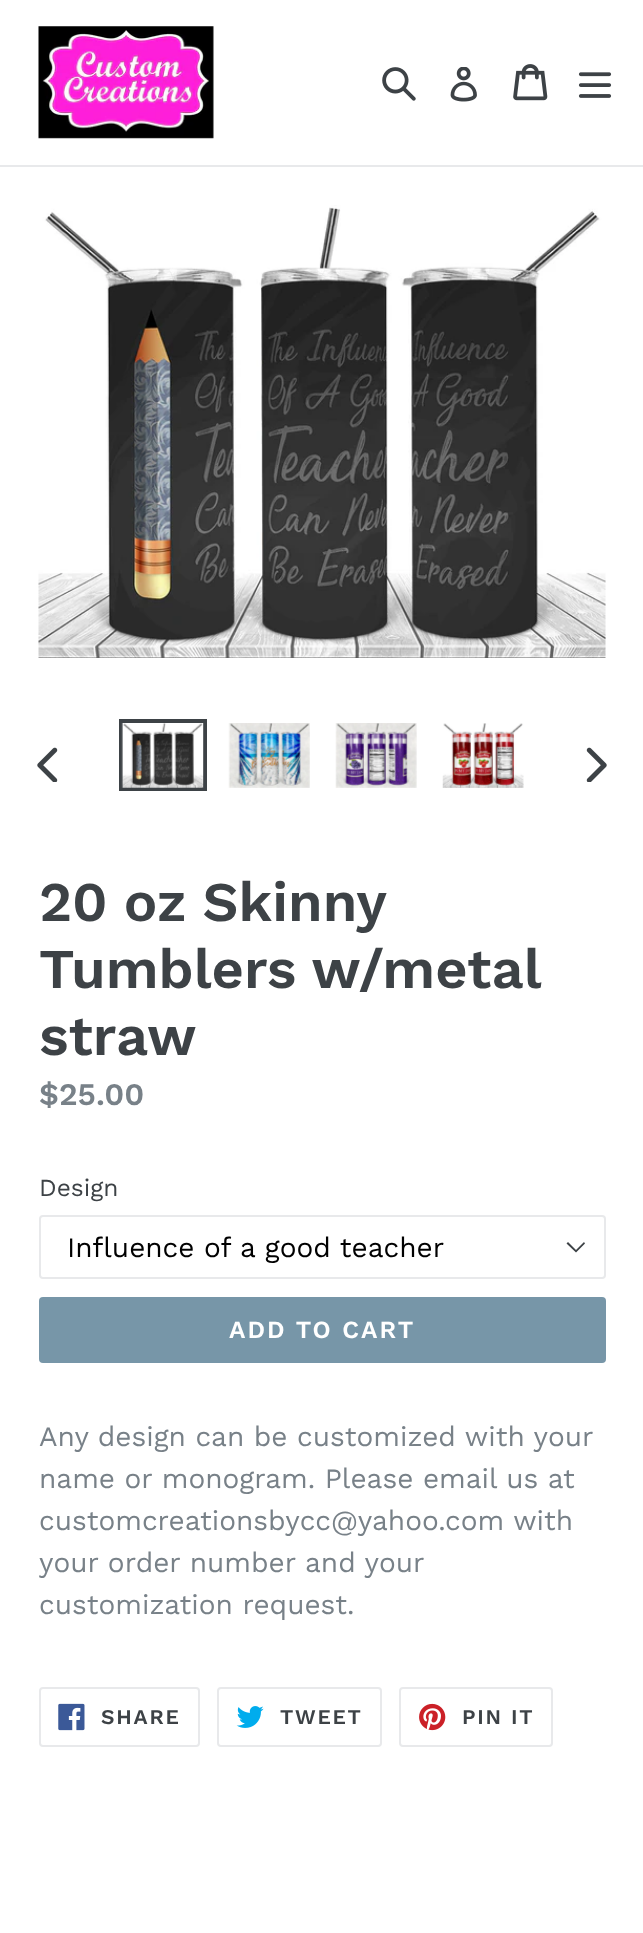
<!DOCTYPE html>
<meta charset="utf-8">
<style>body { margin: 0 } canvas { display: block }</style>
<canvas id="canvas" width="643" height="1933"></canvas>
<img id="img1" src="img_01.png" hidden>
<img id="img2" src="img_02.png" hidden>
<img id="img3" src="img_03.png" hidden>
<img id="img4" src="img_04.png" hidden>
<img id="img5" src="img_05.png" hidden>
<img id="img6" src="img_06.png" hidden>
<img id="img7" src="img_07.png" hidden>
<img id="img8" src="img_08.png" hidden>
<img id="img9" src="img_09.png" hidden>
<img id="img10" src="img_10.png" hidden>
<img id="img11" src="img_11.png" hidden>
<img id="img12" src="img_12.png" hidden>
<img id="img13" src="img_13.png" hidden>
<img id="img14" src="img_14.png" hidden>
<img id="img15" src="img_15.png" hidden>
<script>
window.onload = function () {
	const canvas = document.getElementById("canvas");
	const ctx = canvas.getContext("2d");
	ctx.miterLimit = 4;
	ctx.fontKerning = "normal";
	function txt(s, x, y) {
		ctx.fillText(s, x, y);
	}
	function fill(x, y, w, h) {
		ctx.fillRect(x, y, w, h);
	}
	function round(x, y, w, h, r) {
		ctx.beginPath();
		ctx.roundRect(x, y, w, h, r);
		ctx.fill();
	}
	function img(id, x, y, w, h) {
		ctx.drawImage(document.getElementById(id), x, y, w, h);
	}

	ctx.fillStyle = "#FFFFFF";
	fill(0, 0, 643, 1933);
	ctx.fillStyle = "#E8E9EB";
	fill(0, 165, 643, 2);
	img("img1", 38, 26, 176, 113);
	img("img2", 382, 67, 34, 34);
	img("img3", 450, 67, 27, 35);
	img("img4", 513, 64, 35, 37);
	img("img5", 578, 72, 34, 26);
	img("img6", 38, 205, 568, 453);
	img("img7", 37, 747, 21, 35);
	ctx.strokeStyle = "#3D4246";
	ctx.lineWidth = 4;
	ctx.strokeRect(121, 721, 84, 68);
	img("img8", 121, 723, 83, 65);
	img("img9", 228, 723, 82, 65);
	img("img10", 335, 723, 82, 65);
	img("img11", 442, 723, 82, 65);
	img("img12", 586, 747, 21, 35);
	ctx.fillStyle = "#3D4246";
	ctx.beginPath();
	ctx.moveTo(576, 1252.5);
	ctx.lineTo(566.5, 1243.5);
	ctx.lineTo(568, 1242);
	ctx.lineTo(576, 1250);
	ctx.lineTo(584, 1242);
	ctx.lineTo(585, 1243.5);
	ctx.closePath();
	ctx.fill();
	ctx.beginPath();
	ctx.roundRect(40, 1216, 565, 62, 3);
	ctx.strokeStyle = "#E8E9EB";
	ctx.lineWidth = 2;
	ctx.stroke();
	ctx.fillStyle = "#7796A8";
	round(39, 1297, 567, 66, 4);
	ctx.beginPath();
	ctx.roundRect(40, 1688, 159, 58, 3);
	ctx.stroke();
	img("img13", 58, 1703, 27, 28);
	ctx.beginPath();
	ctx.roundRect(218, 1688, 163, 58, 3);
	ctx.stroke();
	img("img14", 236, 1706, 28, 22);
	ctx.beginPath();
	ctx.roundRect(400, 1688, 152, 58, 3);
	ctx.stroke();
	img("img15", 419, 1703, 27, 28);
	ctx.wordSpacing = "-1px";
	ctx.font = "600 56px Work Sans";
	ctx.fillStyle = "#3D4246";
	txt("20 oz Skinny", 39, 921);
	txt("Tumblers w/metal", 39, 988);
	ctx.wordSpacing = "0px";
	txt("straw", 39, 1055);
	ctx.font = "600 31.5px Work Sans";
	ctx.fillStyle = "#788188";
	txt("$25.00", 39, 1105);
	ctx.font = "24.5px Work Sans";
	ctx.fillStyle = "#3D4246";
	txt("Design", 39, 1196);
	ctx.font = "28px Work Sans";
	ctx.fillStyle = "#000000";
	txt("Influence of a good teacher", 67, 1257);
	ctx.letterSpacing = "2px";
	ctx.font = "600 24.5px Work Sans";
	ctx.fillStyle = "#FFFFFF";
	txt("ADD TO CART", 229, 1338);
	ctx.letterSpacing = "0px";
	ctx.font = "28px Work Sans";
	ctx.fillStyle = "#788188";
	txt("Any design can be customized with your", 39, 1446);
	txt("name or monogram. Please email us at", 39, 1488);
	txt("customcreationsbycc@yahoo.com with", 39, 1530);
	txt("your order number and your", 39, 1572);
	txt("customization request.", 39, 1614);
	ctx.letterSpacing = "1.75px";
	ctx.font = "600 21px Work Sans";
	ctx.fillStyle = "#3D4246";
	txt("SHARE", 101, 1724);
	txt("TWEET", 280, 1724);
	txt("PIN IT", 462, 1724);
};
</script>
